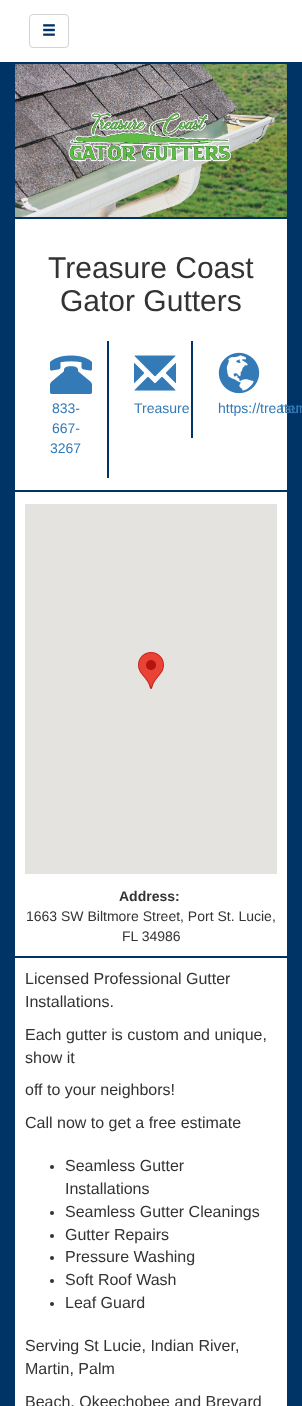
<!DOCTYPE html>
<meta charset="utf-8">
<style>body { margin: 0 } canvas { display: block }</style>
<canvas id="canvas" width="302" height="1406"></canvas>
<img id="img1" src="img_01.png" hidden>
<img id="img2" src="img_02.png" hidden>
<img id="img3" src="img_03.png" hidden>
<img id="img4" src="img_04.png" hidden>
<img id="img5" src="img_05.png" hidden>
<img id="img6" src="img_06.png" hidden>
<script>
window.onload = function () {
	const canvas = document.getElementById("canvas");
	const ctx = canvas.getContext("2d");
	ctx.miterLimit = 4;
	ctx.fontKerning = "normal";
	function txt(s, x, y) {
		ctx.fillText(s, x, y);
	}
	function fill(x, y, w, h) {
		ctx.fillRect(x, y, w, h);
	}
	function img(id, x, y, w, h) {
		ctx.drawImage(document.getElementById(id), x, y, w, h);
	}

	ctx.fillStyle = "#003366";
	fill(0, 0, 302, 1406);
	ctx.fillStyle = "#FFFFFF";
	fill(0, 0, 302, 62);
	ctx.beginPath();
	ctx.roundRect(29.5, 14.5, 39, 33, 3.5);
	ctx.strokeStyle = "#D3D3D3";
	ctx.stroke();
	img("img1", 43, 24, 12, 12);
	img("img2", 15, 64, 272, 153);
	fill(15, 219, 272, 271);
	ctx.fillStyle = "#003366";
	fill(107, 341, 2, 137);
	img("img3", 50, 355, 42, 39);
	img("img4", 218, 352, 42, 42);
	fill(191, 341, 2, 97);
	img("img5", 134, 355, 42, 36);
	ctx.fillStyle = "#FFFFFF";
	fill(15, 492, 272, 464);
	ctx.fillStyle = "#E5E3DF";
	fill(25, 504, 252, 370);
	img("img6", 138, 652, 26, 37);
	ctx.fillStyle = "#FFFFFF";
	fill(15, 958, 272, 448);
	ctx.fillStyle = "#333333";
	ctx.beginPath();
	ctx.arc(52, 1167, 2, 0, Math.PI * 2);
	ctx.fill();
	ctx.beginPath();
	ctx.arc(52, 1213, 2, 0, Math.PI * 2);
	ctx.fill();
	ctx.beginPath();
	ctx.arc(52, 1236, 2, 0, Math.PI * 2);
	ctx.fill();
	ctx.beginPath();
	ctx.arc(52, 1258, 2, 0, Math.PI * 2);
	ctx.fill();
	ctx.beginPath();
	ctx.arc(52, 1281, 2, 0, Math.PI * 2);
	ctx.fill();
	ctx.beginPath();
	ctx.arc(52, 1304, 2, 0, Math.PI * 2);
	ctx.fill();
	ctx.font = "30px Liberation Sans";
	txt("Treasure Coast", 48, 278);
	txt("Gator Gutters", 60, 311);
	ctx.font = "14px Liberation Sans";
	ctx.fillStyle = "#337AB7";
	txt("833-", 52, 413);
	txt("667-", 52, 433);
	txt("3267", 50, 453);
	txt("Treasure", 134, 413);
	txt("tter", 280, 413);
	txt("https://treasur", 218, 413);
	ctx.font = "bold 14px Liberation Sans";
	ctx.fillStyle = "#333333";
	txt("Address:", 119, 901);
	ctx.font = "14px Liberation Sans";
	txt("1663 SW Biltmore Street, Port St. Lucie,", 26, 921);
	txt("FL 34986", 122, 941);
	ctx.font = "16px Liberation Sans";
	txt("Licensed Professional Gutter", 25, 984);
	txt("Installations.", 25, 1007);
	txt("Each gutter is custom and unique,", 25, 1040);
	txt("show it", 25, 1063);
	txt("off to your neighbors!", 25, 1095);
	txt("Call now to get a free estimate", 25, 1128);
	txt("Seamless Gutter", 65, 1171);
	txt("Installations", 65, 1194);
	txt("Seamless Gutter Cleanings", 65, 1217);
	txt("Gutter Repairs", 65, 1240);
	txt("Pressure Washing", 65, 1262);
	txt("Soft Roof Wash", 65, 1285);
	txt("Leaf Guard", 65, 1308);
	txt("Serving St Lucie, Indian River,", 25, 1351);
	txt("Martin, Palm", 25, 1374);
	txt("Beach, Okeechobee and Brevard", 25, 1407);
};
</script>
